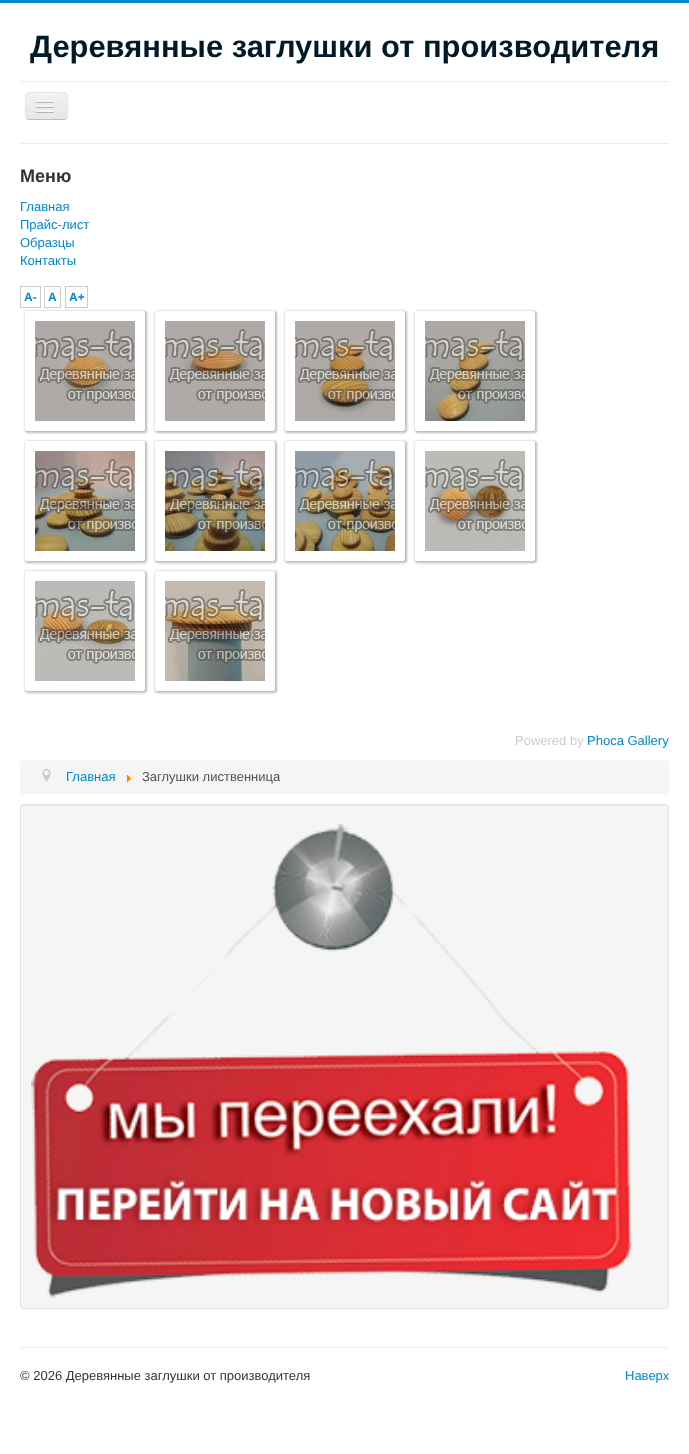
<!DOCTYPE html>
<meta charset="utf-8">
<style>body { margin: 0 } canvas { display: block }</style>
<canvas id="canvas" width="689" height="1454"></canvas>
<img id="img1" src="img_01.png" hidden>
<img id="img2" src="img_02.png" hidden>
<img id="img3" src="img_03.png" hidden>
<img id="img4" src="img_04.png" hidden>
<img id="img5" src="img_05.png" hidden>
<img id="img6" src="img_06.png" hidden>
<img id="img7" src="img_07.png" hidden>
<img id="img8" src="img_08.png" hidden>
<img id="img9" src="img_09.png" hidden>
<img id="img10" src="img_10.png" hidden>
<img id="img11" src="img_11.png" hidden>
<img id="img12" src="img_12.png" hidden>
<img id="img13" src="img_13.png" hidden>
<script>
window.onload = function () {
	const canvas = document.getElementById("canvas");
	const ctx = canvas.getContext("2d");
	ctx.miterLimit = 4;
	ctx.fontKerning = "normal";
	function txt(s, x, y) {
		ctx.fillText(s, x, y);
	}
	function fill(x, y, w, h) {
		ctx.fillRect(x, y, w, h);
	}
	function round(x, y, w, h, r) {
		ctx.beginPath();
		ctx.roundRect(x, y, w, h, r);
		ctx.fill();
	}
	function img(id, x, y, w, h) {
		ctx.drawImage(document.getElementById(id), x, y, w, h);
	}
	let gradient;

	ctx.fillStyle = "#FFFFFF";
	fill(0, 0, 689, 1454);
	ctx.fillStyle = "#0088CC";
	fill(0, 0, 689, 3);
	ctx.fillStyle = "#ECECEC";
	fill(20, 81, 649, 1);
	fill(20, 143, 649, 1);
	ctx.fillStyle = "#EDEDED";
	round(25, 92, 43, 28, 4);
	ctx.save();
	ctx.beginPath();
	ctx.roundRect(25, 92, 43, 28, 4);
	ctx.clip();
	gradient = ctx.createLinearGradient(47, 93, 47, 119);
	gradient.addColorStop(0, "#F2F2F2");
	gradient.addColorStop(1, "#E6E6E6");
	ctx.fillStyle = gradient;
	fill(25, 93, 43, 26);
	ctx.restore();
	ctx.beginPath();
	ctx.moveTo(66.5, 118.5);
	ctx.bezierCurveTo(66, 119, 65, 119.5, 64, 119.5);
	ctx.lineTo(29, 119.5);
	ctx.bezierCurveTo(28, 119.5, 27, 119, 26.5, 118.5);
	ctx.strokeStyle = "#BFBFBF";
	ctx.stroke();
	ctx.beginPath();
	ctx.moveTo(26.5, 118.5);
	ctx.bezierCurveTo(24.5, 116, 25.5, 108.5, 25.5, 106);
	ctx.bezierCurveTo(25.5, 94, 23, 92.5, 35, 92.5);
	ctx.lineTo(58, 92.5);
	ctx.bezierCurveTo(70, 92.5, 67.5, 94, 67.5, 106);
	ctx.bezierCurveTo(67.5, 108.5, 68.5, 116, 66.5, 118.5);
	ctx.strokeStyle = "#E6E6E6";
	ctx.stroke();
	ctx.fillStyle = "#B3B3B3";
	ctx.beginPath();
	ctx.moveTo(36, 101.5);
	ctx.bezierCurveTo(35, 103.5, 39.5, 103, 39.5, 103);
	ctx.lineTo(50.5, 103);
	ctx.bezierCurveTo(50.5, 103, 55, 103.5, 54, 101.5);
	ctx.bezierCurveTo(53, 102.5, 46.5, 102, 45, 102);
	ctx.bezierCurveTo(43.5, 102, 37, 102.5, 36, 101.5);
	ctx.closePath();
	ctx.fill();
	ctx.fillStyle = "#F5F5F5";
	round(36, 100, 18, 2, 1);
	ctx.fillStyle = "#B0B0B0";
	ctx.beginPath();
	ctx.moveTo(36, 106.5);
	ctx.bezierCurveTo(35, 108.5, 39.5, 108, 39.5, 108);
	ctx.lineTo(50.5, 108);
	ctx.bezierCurveTo(50.5, 108, 55, 108.5, 54, 106.5);
	ctx.bezierCurveTo(53, 107.5, 46.5, 107, 45, 107);
	ctx.bezierCurveTo(43.5, 107, 37, 107.5, 36, 106.5);
	ctx.closePath();
	ctx.fill();
	ctx.fillStyle = "#F5F5F5";
	round(36, 105, 18, 2, 1);
	ctx.fillStyle = "#AFAFAF";
	ctx.beginPath();
	ctx.moveTo(36, 111.5);
	ctx.bezierCurveTo(35, 113.5, 39.5, 113, 39.5, 113);
	ctx.lineTo(50.5, 113);
	ctx.bezierCurveTo(50.5, 113, 55, 113.5, 54, 111.5);
	ctx.bezierCurveTo(53, 112.5, 46.5, 112, 45, 112);
	ctx.bezierCurveTo(43.5, 112, 37, 112.5, 36, 111.5);
	ctx.closePath();
	ctx.fill();
	ctx.fillStyle = "#F5F5F5";
	round(36, 110, 18, 2, 1);
	ctx.save();
	ctx.beginPath();
	ctx.moveTo(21, 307);
	ctx.lineTo(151, 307);
	ctx.lineTo(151, 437);
	ctx.lineTo(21, 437);
	ctx.closePath();
	ctx.moveTo(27, 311);
	ctx.lineTo(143, 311);
	ctx.bezierCurveTo(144, 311, 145, 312, 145, 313);
	ctx.lineTo(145, 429);
	ctx.bezierCurveTo(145, 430, 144, 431, 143, 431);
	ctx.lineTo(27, 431);
	ctx.bezierCurveTo(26, 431, 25, 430, 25, 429);
	ctx.lineTo(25, 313);
	ctx.bezierCurveTo(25, 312, 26, 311, 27, 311);
	ctx.closePath();
	ctx.clip("evenodd");
	ctx.fillStyle = "rgba(120, 120, 120, 0.5)";
	ctx.filter = "blur(1px)";
	ctx.beginPath();
	ctx.roundRect(25, 311, 122, 122, 3);
	ctx.fill();
	ctx.filter = "none";
	ctx.restore();
	ctx.strokeStyle = "#CCCCCC";
	ctx.strokeRect(20.5, 286.5, 20, 21);
	ctx.strokeRect(44.5, 286.5, 16, 21);
	ctx.strokeRect(65.5, 286.5, 22, 21);
	img("img1", 35, 321, 100, 100);
	ctx.save();
	ctx.beginPath();
	ctx.moveTo(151, 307);
	ctx.lineTo(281, 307);
	ctx.lineTo(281, 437);
	ctx.lineTo(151, 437);
	ctx.closePath();
	ctx.moveTo(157, 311);
	ctx.lineTo(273, 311);
	ctx.bezierCurveTo(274, 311, 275, 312, 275, 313);
	ctx.lineTo(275, 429);
	ctx.bezierCurveTo(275, 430, 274, 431, 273, 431);
	ctx.lineTo(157, 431);
	ctx.bezierCurveTo(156, 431, 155, 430, 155, 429);
	ctx.lineTo(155, 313);
	ctx.bezierCurveTo(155, 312, 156, 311, 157, 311);
	ctx.closePath();
	ctx.clip("evenodd");
	ctx.fillStyle = "rgba(120, 120, 120, 0.5)";
	ctx.filter = "blur(1px)";
	ctx.beginPath();
	ctx.roundRect(155, 311, 122, 122, 3);
	ctx.fill();
	ctx.filter = "none";
	ctx.restore();
	img("img2", 165, 321, 100, 100);
	ctx.save();
	ctx.beginPath();
	ctx.moveTo(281, 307);
	ctx.lineTo(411, 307);
	ctx.lineTo(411, 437);
	ctx.lineTo(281, 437);
	ctx.closePath();
	ctx.moveTo(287, 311);
	ctx.lineTo(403, 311);
	ctx.bezierCurveTo(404, 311, 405, 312, 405, 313);
	ctx.lineTo(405, 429);
	ctx.bezierCurveTo(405, 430, 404, 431, 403, 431);
	ctx.lineTo(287, 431);
	ctx.bezierCurveTo(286, 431, 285, 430, 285, 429);
	ctx.lineTo(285, 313);
	ctx.bezierCurveTo(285, 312, 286, 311, 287, 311);
	ctx.closePath();
	ctx.clip("evenodd");
	ctx.fillStyle = "rgba(120, 120, 120, 0.5)";
	ctx.filter = "blur(1px)";
	ctx.beginPath();
	ctx.roundRect(285, 311, 122, 122, 3);
	ctx.fill();
	ctx.filter = "none";
	ctx.restore();
	img("img3", 295, 321, 100, 100);
	ctx.save();
	ctx.beginPath();
	ctx.moveTo(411, 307);
	ctx.lineTo(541, 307);
	ctx.lineTo(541, 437);
	ctx.lineTo(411, 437);
	ctx.closePath();
	ctx.moveTo(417, 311);
	ctx.lineTo(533, 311);
	ctx.bezierCurveTo(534, 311, 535, 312, 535, 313);
	ctx.lineTo(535, 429);
	ctx.bezierCurveTo(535, 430, 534, 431, 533, 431);
	ctx.lineTo(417, 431);
	ctx.bezierCurveTo(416, 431, 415, 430, 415, 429);
	ctx.lineTo(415, 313);
	ctx.bezierCurveTo(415, 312, 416, 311, 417, 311);
	ctx.closePath();
	ctx.clip("evenodd");
	ctx.fillStyle = "rgba(120, 120, 120, 0.5)";
	ctx.filter = "blur(1px)";
	ctx.beginPath();
	ctx.roundRect(415, 311, 122, 122, 3);
	ctx.fill();
	ctx.filter = "none";
	ctx.restore();
	img("img4", 425, 321, 100, 100);
	ctx.save();
	ctx.beginPath();
	ctx.moveTo(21, 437);
	ctx.lineTo(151, 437);
	ctx.lineTo(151, 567);
	ctx.lineTo(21, 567);
	ctx.closePath();
	ctx.moveTo(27, 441);
	ctx.lineTo(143, 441);
	ctx.bezierCurveTo(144, 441, 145, 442, 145, 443);
	ctx.lineTo(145, 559);
	ctx.bezierCurveTo(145, 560, 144, 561, 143, 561);
	ctx.lineTo(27, 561);
	ctx.bezierCurveTo(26, 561, 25, 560, 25, 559);
	ctx.lineTo(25, 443);
	ctx.bezierCurveTo(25, 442, 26, 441, 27, 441);
	ctx.closePath();
	ctx.clip("evenodd");
	ctx.fillStyle = "rgba(120, 120, 120, 0.5)";
	ctx.filter = "blur(1px)";
	ctx.beginPath();
	ctx.roundRect(25, 441, 122, 122, 3);
	ctx.fill();
	ctx.filter = "none";
	ctx.restore();
	img("img5", 35, 451, 100, 100);
	ctx.save();
	ctx.beginPath();
	ctx.moveTo(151, 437);
	ctx.lineTo(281, 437);
	ctx.lineTo(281, 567);
	ctx.lineTo(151, 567);
	ctx.closePath();
	ctx.moveTo(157, 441);
	ctx.lineTo(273, 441);
	ctx.bezierCurveTo(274, 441, 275, 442, 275, 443);
	ctx.lineTo(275, 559);
	ctx.bezierCurveTo(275, 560, 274, 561, 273, 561);
	ctx.lineTo(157, 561);
	ctx.bezierCurveTo(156, 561, 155, 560, 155, 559);
	ctx.lineTo(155, 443);
	ctx.bezierCurveTo(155, 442, 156, 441, 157, 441);
	ctx.closePath();
	ctx.clip("evenodd");
	ctx.fillStyle = "rgba(120, 120, 120, 0.5)";
	ctx.filter = "blur(1px)";
	ctx.beginPath();
	ctx.roundRect(155, 441, 122, 122, 3);
	ctx.fill();
	ctx.filter = "none";
	ctx.restore();
	img("img6", 165, 451, 100, 100);
	ctx.save();
	ctx.beginPath();
	ctx.moveTo(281, 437);
	ctx.lineTo(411, 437);
	ctx.lineTo(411, 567);
	ctx.lineTo(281, 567);
	ctx.closePath();
	ctx.moveTo(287, 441);
	ctx.lineTo(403, 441);
	ctx.bezierCurveTo(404, 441, 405, 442, 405, 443);
	ctx.lineTo(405, 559);
	ctx.bezierCurveTo(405, 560, 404, 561, 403, 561);
	ctx.lineTo(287, 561);
	ctx.bezierCurveTo(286, 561, 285, 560, 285, 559);
	ctx.lineTo(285, 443);
	ctx.bezierCurveTo(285, 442, 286, 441, 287, 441);
	ctx.closePath();
	ctx.clip("evenodd");
	ctx.fillStyle = "rgba(120, 120, 120, 0.5)";
	ctx.filter = "blur(1px)";
	ctx.beginPath();
	ctx.roundRect(285, 441, 122, 122, 3);
	ctx.fill();
	ctx.filter = "none";
	ctx.restore();
	img("img7", 295, 451, 100, 100);
	ctx.save();
	ctx.beginPath();
	ctx.moveTo(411, 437);
	ctx.lineTo(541, 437);
	ctx.lineTo(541, 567);
	ctx.lineTo(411, 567);
	ctx.closePath();
	ctx.moveTo(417, 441);
	ctx.lineTo(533, 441);
	ctx.bezierCurveTo(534, 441, 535, 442, 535, 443);
	ctx.lineTo(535, 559);
	ctx.bezierCurveTo(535, 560, 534, 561, 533, 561);
	ctx.lineTo(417, 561);
	ctx.bezierCurveTo(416, 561, 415, 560, 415, 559);
	ctx.lineTo(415, 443);
	ctx.bezierCurveTo(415, 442, 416, 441, 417, 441);
	ctx.closePath();
	ctx.clip("evenodd");
	ctx.fillStyle = "rgba(120, 120, 120, 0.5)";
	ctx.filter = "blur(1px)";
	ctx.beginPath();
	ctx.roundRect(415, 441, 122, 122, 3);
	ctx.fill();
	ctx.filter = "none";
	ctx.restore();
	img("img8", 425, 451, 100, 100);
	ctx.save();
	ctx.beginPath();
	ctx.moveTo(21, 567);
	ctx.lineTo(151, 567);
	ctx.lineTo(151, 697);
	ctx.lineTo(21, 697);
	ctx.closePath();
	ctx.moveTo(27, 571);
	ctx.lineTo(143, 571);
	ctx.bezierCurveTo(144, 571, 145, 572, 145, 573);
	ctx.lineTo(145, 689);
	ctx.bezierCurveTo(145, 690, 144, 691, 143, 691);
	ctx.lineTo(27, 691);
	ctx.bezierCurveTo(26, 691, 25, 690, 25, 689);
	ctx.lineTo(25, 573);
	ctx.bezierCurveTo(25, 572, 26, 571, 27, 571);
	ctx.closePath();
	ctx.clip("evenodd");
	ctx.fillStyle = "rgba(120, 120, 120, 0.5)";
	ctx.filter = "blur(1px)";
	ctx.beginPath();
	ctx.roundRect(25, 571, 122, 122, 3);
	ctx.fill();
	ctx.filter = "none";
	ctx.restore();
	img("img9", 35, 581, 100, 100);
	ctx.save();
	ctx.beginPath();
	ctx.moveTo(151, 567);
	ctx.lineTo(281, 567);
	ctx.lineTo(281, 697);
	ctx.lineTo(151, 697);
	ctx.closePath();
	ctx.moveTo(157, 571);
	ctx.lineTo(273, 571);
	ctx.bezierCurveTo(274, 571, 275, 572, 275, 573);
	ctx.lineTo(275, 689);
	ctx.bezierCurveTo(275, 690, 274, 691, 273, 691);
	ctx.lineTo(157, 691);
	ctx.bezierCurveTo(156, 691, 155, 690, 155, 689);
	ctx.lineTo(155, 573);
	ctx.bezierCurveTo(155, 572, 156, 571, 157, 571);
	ctx.closePath();
	ctx.clip("evenodd");
	ctx.fillStyle = "rgba(120, 120, 120, 0.5)";
	ctx.filter = "blur(1px)";
	ctx.beginPath();
	ctx.roundRect(155, 571, 122, 122, 3);
	ctx.fill();
	ctx.filter = "none";
	ctx.restore();
	img("img10", 165, 581, 100, 100);
	round(20, 760, 649, 34, 4);
	img("img11", 42, 768, 9, 14);
	img("img12", 127, 775, 4, 7);
	round(20, 804, 649, 505, 4);
	ctx.fillStyle = "#E9E9E9";
	ctx.beginPath();
	ctx.moveTo(24, 806);
	ctx.lineTo(665, 806);
	ctx.bezierCurveTo(667, 806, 668, 807, 668, 809);
	ctx.lineTo(668, 808);
	ctx.bezierCurveTo(668, 806, 667, 805, 665, 805);
	ctx.lineTo(24, 805);
	ctx.bezierCurveTo(22, 805, 21, 806, 21, 808);
	ctx.lineTo(21, 809);
	ctx.bezierCurveTo(21, 807, 22, 806, 24, 806);
	ctx.closePath();
	ctx.fill();
	ctx.beginPath();
	ctx.roundRect(20.5, 804.5, 648, 504, 3.5);
	ctx.strokeStyle = "#E3E3E3";
	ctx.stroke();
	img("img13", 31, 824, 600, 474);
	ctx.fillStyle = "#EEEEEE";
	fill(20, 1347, 649, 1);
	ctx.font = "bold 30.9px Liberation Sans";
	ctx.fillStyle = "#001A27";
	txt("Деревянные заглушки от производителя", 30, 57);
	ctx.font = "bold 18px Liberation Sans";
	ctx.fillStyle = "#333333";
	txt("Меню", 20, 182);
	ctx.font = "13px Liberation Sans";
	ctx.fillStyle = "#0088CC";
	txt("Главная", 20, 211);
	txt("Прайс-лист", 20, 229);
	txt("Образцы", 20, 247);
	txt("Контакты", 20, 265);
	ctx.font = "bold 12px Liberation Sans";
	txt("A-", 24, 301);
	txt("A", 48, 301);
	txt("A+", 69, 301);
	ctx.font = "13px Liberation Sans";
	ctx.fillStyle = "#CCCCCC";
	txt("Powered by", 515, 745);
	ctx.fillStyle = "#0088CC";
	txt("Phoca Gallery", 587, 745);
	txt("Главная", 66, 781);
	ctx.fillStyle = "#515151";
	txt("Заглушки лиственница", 142, 781);
	ctx.fillStyle = "#333333";
	txt("© 2026 Деревянные заглушки от производителя", 20, 1380);
	ctx.fillStyle = "#0088CC";
	txt("Наверх", 625, 1380);
};
</script>
